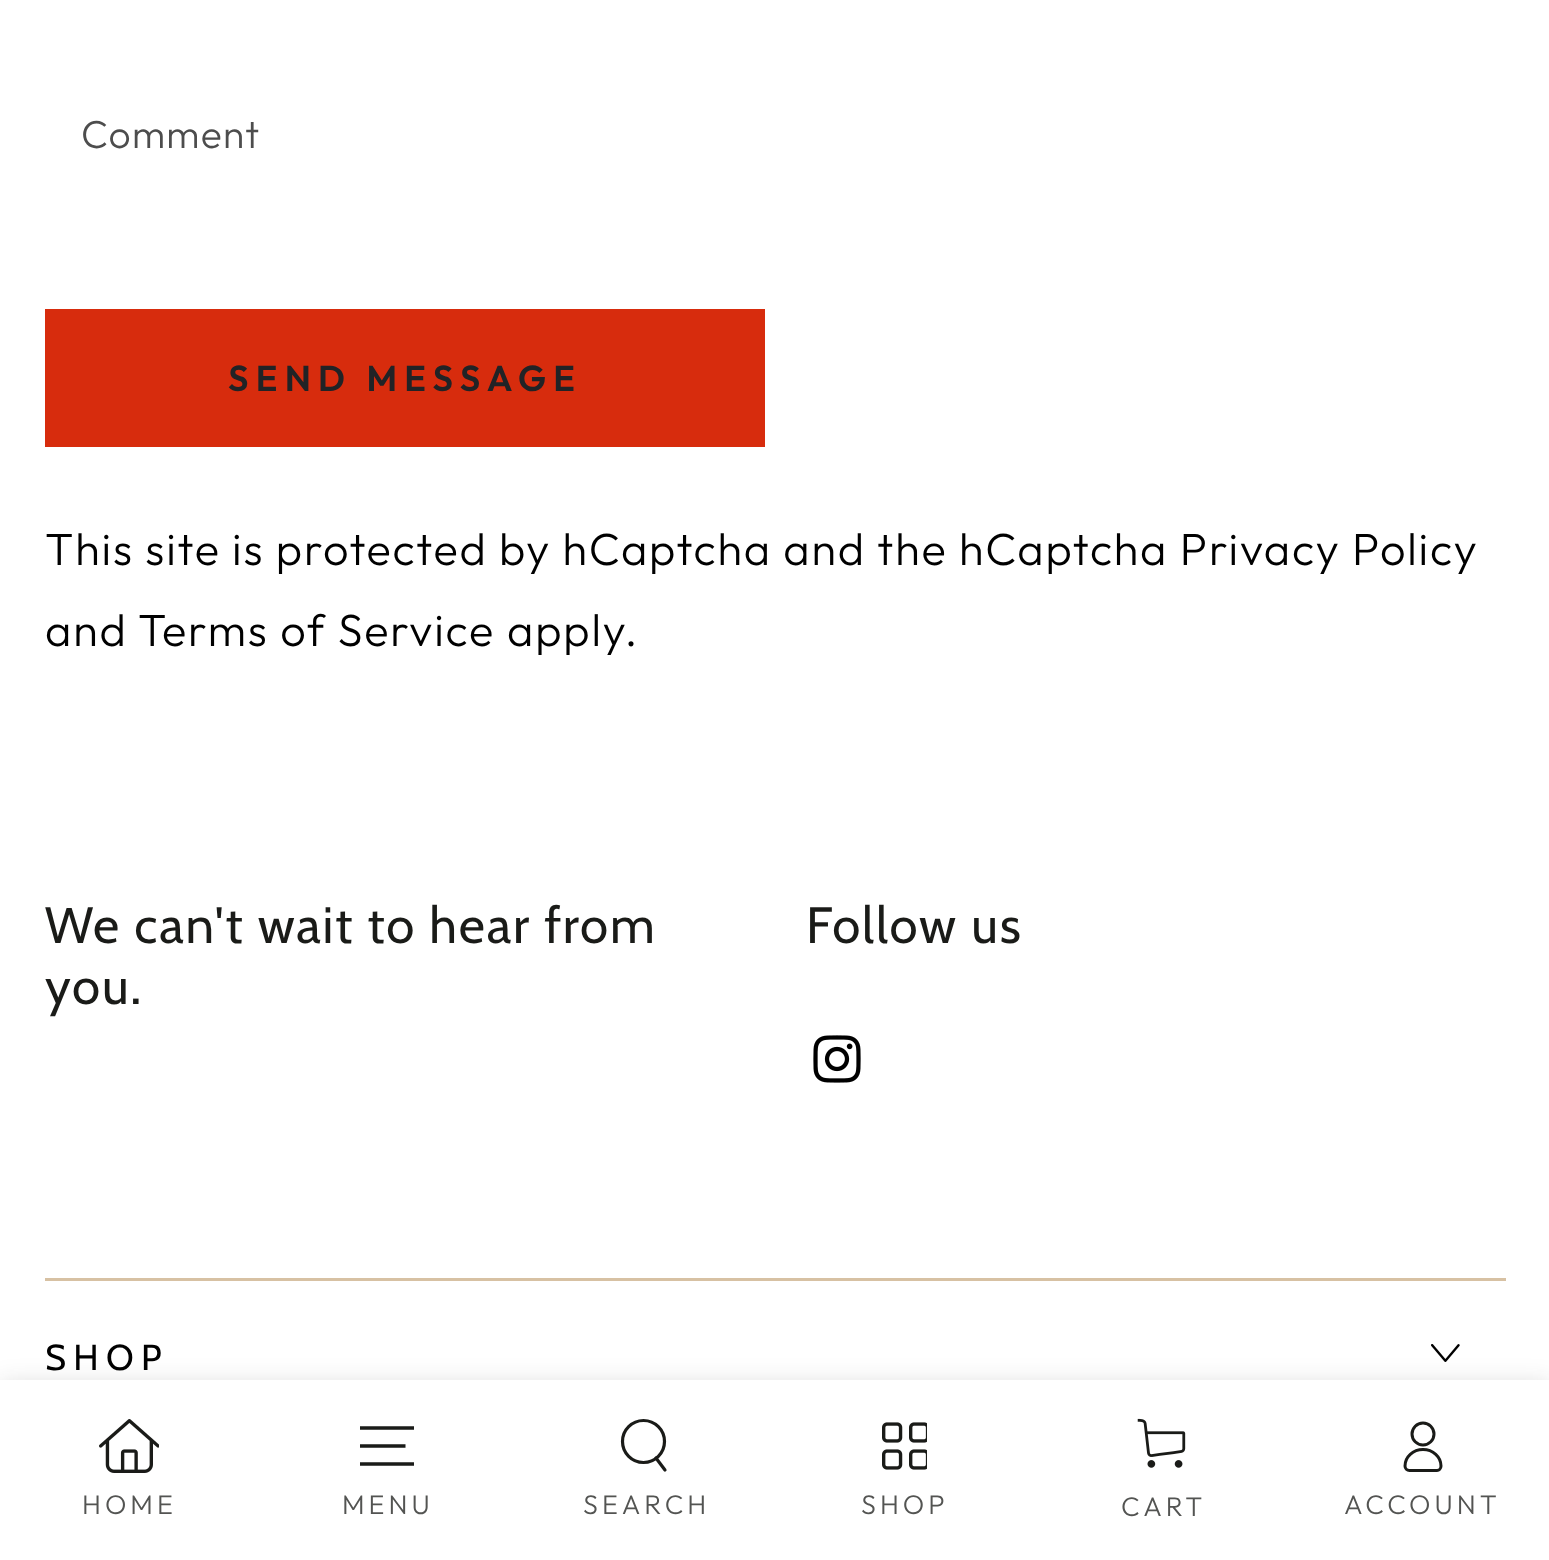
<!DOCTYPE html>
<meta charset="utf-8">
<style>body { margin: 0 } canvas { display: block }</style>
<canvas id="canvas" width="1549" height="1560"></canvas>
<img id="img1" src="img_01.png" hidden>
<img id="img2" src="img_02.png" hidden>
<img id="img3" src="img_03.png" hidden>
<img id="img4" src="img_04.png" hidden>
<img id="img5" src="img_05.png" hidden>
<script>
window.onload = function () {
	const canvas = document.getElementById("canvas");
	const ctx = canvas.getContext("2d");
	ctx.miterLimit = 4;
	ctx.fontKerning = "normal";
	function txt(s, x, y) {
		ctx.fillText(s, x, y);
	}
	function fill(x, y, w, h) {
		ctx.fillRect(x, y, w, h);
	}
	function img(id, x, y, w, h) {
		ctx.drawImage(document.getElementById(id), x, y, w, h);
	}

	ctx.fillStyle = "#FFFFFF";
	fill(0, 0, 1549, 1560);
	ctx.fillStyle = "#D72C0D";
	fill(45, 309, 720, 138);
	img("img1", 813, 1035, 48, 48);
	ctx.fillStyle = "#D7C1A3";
	fill(45, 1278, 1461, 3);
	img("img2", 1431, 1344, 29, 18);
	ctx.fillStyle = "rgba(26, 27, 24, 0.15)";
	ctx.filter = "blur(12px)";
	ctx.beginPath();
	ctx.rect(0, 1383, 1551, 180);
	ctx.fill();
	ctx.filter = "none";
	ctx.fillStyle = "#FFFFFF";
	fill(0, 1380, 1549, 180);
	img("img3", 99, 1419, 60, 54);
	ctx.beginPath();
	ctx.moveTo(360, 1464);
	ctx.lineTo(414, 1464);
	ctx.moveTo(360, 1446);
	ctx.lineTo(405.5, 1446);
	ctx.moveTo(360, 1428);
	ctx.lineTo(414, 1428);
	ctx.strokeStyle = "#1A1B18";
	ctx.lineWidth = 3.4;
	ctx.stroke();
	ctx.beginPath();
	ctx.arc(643.5, 1441.5, 21, 0, Math.PI * 2);
	ctx.lineWidth = 3.2;
	ctx.stroke();
	ctx.beginPath();
	ctx.moveTo(656, 1458);
	ctx.lineTo(665, 1470);
	ctx.lineCap = "round";
	ctx.stroke();
	img("img4", 882, 1422, 45, 48);
	img("img5", 1137, 1418, 49, 50);
	ctx.beginPath();
	ctx.moveTo(1423, 1449.5);
	ctx.bezierCurveTo(1413, 1449.5, 1405, 1457, 1405, 1466);
	ctx.bezierCurveTo(1405, 1468.5, 1407, 1470.5, 1409.5, 1470.5);
	ctx.lineTo(1437, 1470.5);
	ctx.bezierCurveTo(1439, 1470.5, 1441, 1468.5, 1441, 1466);
	ctx.bezierCurveTo(1441, 1457, 1433, 1449.5, 1423, 1449.5);
	ctx.closePath();
	ctx.lineWidth = 3;
	ctx.lineCap = "butt";
	ctx.stroke();
	ctx.beginPath();
	ctx.arc(1423, 1434, 11, 0, Math.PI * 2);
	ctx.stroke();
	ctx.letterSpacing = "1.25px";
	ctx.font = "300 39px Outfit";
	ctx.fillStyle = "#4D4D4D";
	txt("Comment", 81, 148);
	ctx.letterSpacing = "7.25px";
	ctx.font = "600 36px Outfit";
	ctx.fillStyle = "#212326";
	txt("SEND MESSAGE", 228, 391);
	ctx.letterSpacing = "1.8px";
	ctx.font = "300 45px Outfit";
	ctx.fillStyle = "#000000";
	txt("This site is protected by hCaptcha and the hCaptcha Privacy Policy", 45, 565);
	txt("and", 45, 646);
	txt("Terms of Service", 138, 646);
	txt("apply.", 507, 646);
	ctx.font = "51px Cabin";
	ctx.fillStyle = "#1A1B18";
	txt("We can't wait to hear from", 45, 943);
	txt("you.", 45, 1004);
	txt("Follow us", 806, 943);
	ctx.letterSpacing = "7.25px";
	ctx.font = "36px Cabin";
	ctx.fillStyle = "#000000";
	txt("SHOP", 45, 1370);
	ctx.letterSpacing = "4px";
	ctx.font = "300 27px Outfit";
	ctx.fillStyle = "#535452";
	txt("HOME", 82, 1514);
	txt("MENU", 342, 1514);
	txt("SEARCH", 583, 1514);
	txt("SHOP", 861, 1514);
	txt("CART", 1121, 1516);
	txt("ACCOUNT", 1344, 1514);
};
</script>
